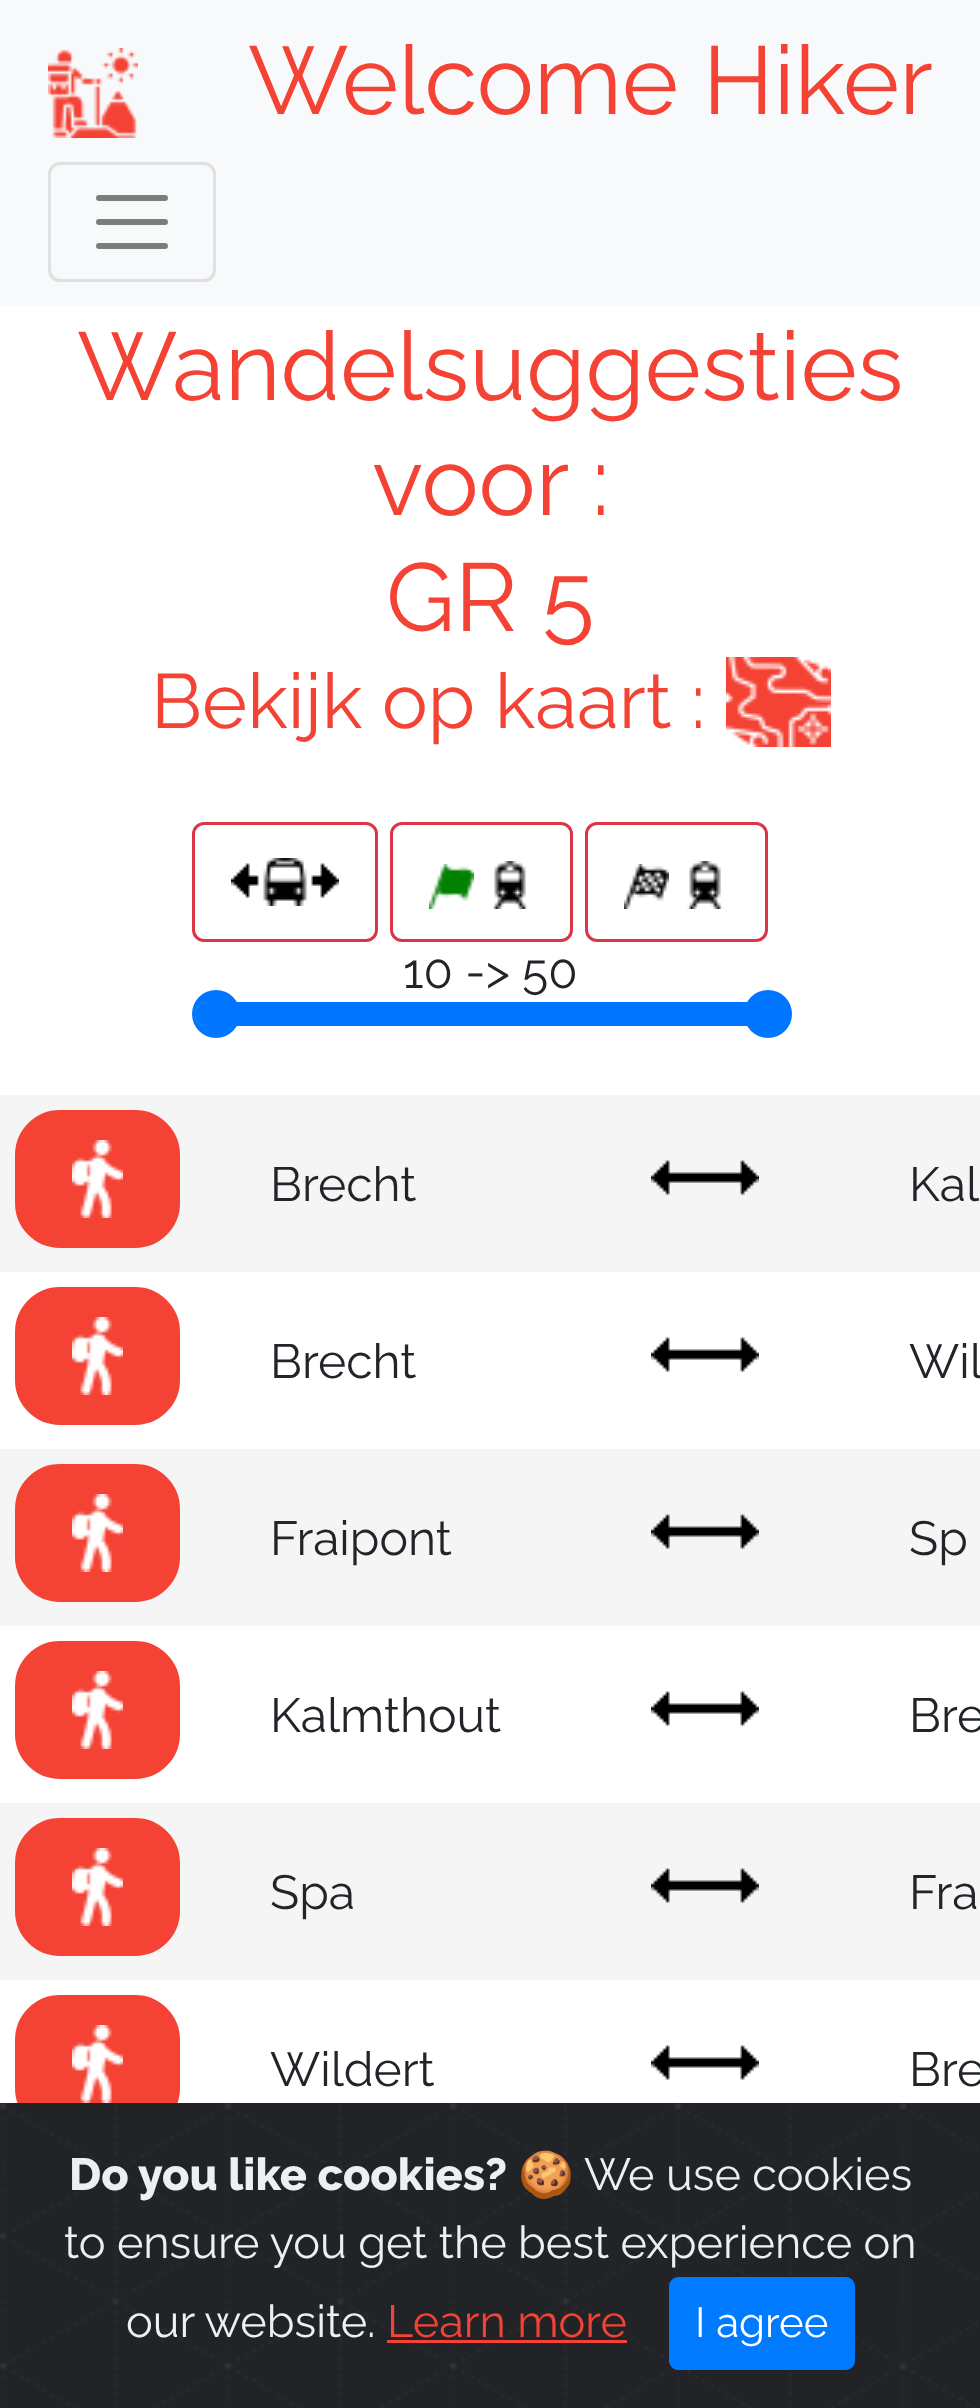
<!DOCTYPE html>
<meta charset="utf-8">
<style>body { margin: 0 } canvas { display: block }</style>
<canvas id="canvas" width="980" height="2408"></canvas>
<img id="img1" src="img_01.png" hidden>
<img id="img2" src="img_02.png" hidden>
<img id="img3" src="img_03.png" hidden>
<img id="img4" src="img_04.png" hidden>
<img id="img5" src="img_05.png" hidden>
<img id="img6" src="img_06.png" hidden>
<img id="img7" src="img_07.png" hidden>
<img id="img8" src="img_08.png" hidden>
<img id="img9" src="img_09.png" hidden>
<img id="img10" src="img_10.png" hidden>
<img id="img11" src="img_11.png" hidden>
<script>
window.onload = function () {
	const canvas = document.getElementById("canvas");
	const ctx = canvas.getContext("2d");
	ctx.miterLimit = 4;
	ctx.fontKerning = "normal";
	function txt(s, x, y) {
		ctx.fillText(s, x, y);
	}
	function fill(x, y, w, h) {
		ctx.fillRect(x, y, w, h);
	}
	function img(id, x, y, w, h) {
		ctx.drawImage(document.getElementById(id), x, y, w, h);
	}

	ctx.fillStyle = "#FFFFFF";
	fill(0, 0, 980, 2408);
	ctx.fillStyle = "#F8F9FA";
	fill(0, 0, 980, 306);
	img("img1", 48, 48, 90, 90);
	ctx.beginPath();
	ctx.roundRect(49.5, 163.5, 165, 117, 10.5);
	ctx.strokeStyle = "#DFE0E1";
	ctx.lineWidth = 3;
	ctx.stroke();
	ctx.beginPath();
	ctx.moveTo(99, 198);
	ctx.lineTo(165, 198);
	ctx.moveTo(99, 222);
	ctx.lineTo(165, 222);
	ctx.moveTo(99, 246);
	ctx.lineTo(165, 246);
	ctx.strokeStyle = "#7C7D7D";
	ctx.lineWidth = 6;
	ctx.lineCap = "round";
	ctx.stroke();
	img("img2", 726, 657, 105, 90);
	ctx.beginPath();
	ctx.roundRect(193.5, 823.5, 183, 117, 10.5);
	ctx.strokeStyle = "#DC3545";
	ctx.lineWidth = 3;
	ctx.stroke();
	img("img3", 231, 858, 108, 48);
	ctx.beginPath();
	ctx.roundRect(391.5, 823.5, 180, 117, 10.5);
	ctx.stroke();
	img("img4", 429, 864, 45, 45);
	img("img5", 492, 861, 36, 48);
	ctx.beginPath();
	ctx.roundRect(586.5, 823.5, 180, 117, 10.5);
	ctx.stroke();
	img("img6", 624, 864, 45, 45);
	img("img7", 687, 861, 36, 48);
	ctx.fillStyle = "#0075FF";
	ctx.beginPath();
	ctx.arc(216, 1014, 24, 0, Math.PI * 2);
	ctx.fill();
	ctx.beginPath();
	ctx.roundRect(196.5, 1003.5, 591, 21, 10.5);
	ctx.strokeStyle = "#B2B2B2";
	ctx.stroke();
	ctx.beginPath();
	ctx.roundRect(195, 1002, 573, 24, [12, 0, 0, 12]);
	ctx.fill();
	ctx.beginPath();
	ctx.arc(768, 1014, 24, 0, Math.PI * 2);
	ctx.fill();
	ctx.fillStyle = "#F5F5F5";
	fill(0, 1095, 980, 177);
	ctx.fillStyle = "#F44335";
	ctx.beginPath();
	ctx.roundRect(22.5, 1117.5, 150, 123, 37.5);
	ctx.fill();
	ctx.strokeStyle = "#F44335";
	ctx.lineWidth = 15;
	ctx.stroke();
	img("img8", 72, 1140, 51, 78);
	img("img9", 651, 1160, 108, 35);
	ctx.beginPath();
	ctx.roundRect(22.5, 1294.5, 150, 123, 37.5);
	ctx.fill();
	ctx.stroke();
	img("img8", 72, 1317, 51, 78);
	img("img10", 651, 1337, 108, 35);
	ctx.fillStyle = "#F5F5F5";
	fill(0, 1449, 980, 177);
	ctx.fillStyle = "#F44335";
	ctx.beginPath();
	ctx.roundRect(22.5, 1471.5, 150, 123, 37.5);
	ctx.fill();
	ctx.stroke();
	img("img8", 72, 1494, 51, 78);
	img("img9", 651, 1514, 108, 35);
	ctx.beginPath();
	ctx.roundRect(22.5, 1648.5, 150, 123, 37.5);
	ctx.fill();
	ctx.stroke();
	img("img8", 72, 1671, 51, 78);
	img("img10", 651, 1691, 108, 35);
	ctx.fillStyle = "#F5F5F5";
	fill(0, 1803, 980, 177);
	ctx.fillStyle = "#F44335";
	ctx.beginPath();
	ctx.roundRect(22.5, 1825.5, 150, 123, 37.5);
	ctx.fill();
	ctx.stroke();
	img("img8", 72, 1848, 51, 78);
	img("img9", 651, 1868, 108, 35);
	ctx.beginPath();
	ctx.roundRect(22.5, 2002.5, 150, 123, 37.5);
	ctx.fill();
	ctx.stroke();
	img("img8", 72, 2025, 51, 78);
	img("img10", 651, 2045, 108, 35);
	ctx.fillStyle = "#212327";
	fill(978, 2103, 2, 305);
	img("img11", 0, 2103, 978, 305);
	ctx.fillStyle = "#F44335";
	fill(387, 2340, 240, 3);
	ctx.fillStyle = "#007BFF";
	ctx.beginPath();
	ctx.roundRect(670.5, 2278.5, 183, 90, 7.5);
	ctx.fill();
	ctx.strokeStyle = "#007BFF";
	ctx.lineWidth = 3;
	ctx.stroke();
	ctx.font = "96px Raleway";
	ctx.fillStyle = "#F44335";
	txt("Welcome Hiker", 248, 114);
	txt("Wandelsuggesties", 77, 400);
	txt("voor :", 372, 515);
	txt("GR 5", 386, 631);
	ctx.font = "76.75px Raleway";
	txt("Bekijk op kaart :", 151, 728);
	ctx.font = "48px Raleway";
	ctx.fillStyle = "#212529";
	txt("10 -> 50", 403, 988);
	txt("Brecht", 270, 1201);
	txt("Kal", 909, 1201);
	txt("Brecht", 270, 1378);
	txt("Wil", 909, 1378);
	txt("Fraipont", 270, 1555);
	txt("Sp", 909, 1555);
	txt("Kalmthout", 270, 1732);
	txt("Bre", 909, 1732);
	txt("Spa", 270, 1909);
	txt("Fra", 909, 1909);
	txt("Wildert", 270, 2086);
	txt("Bre", 909, 2086);
	ctx.font = "800 45px Raleway";
	ctx.fillStyle = "#ECF0F1";
	txt("Do you like cookies?", 69, 2190);
	ctx.font = "45px Noto Color Emoji";
	txt("🍪", 518, 2190);
	ctx.font = "45px Raleway";
	txt("We use cookies", 584, 2190);
	txt("to ensure you get the best experience on", 64, 2258);
	txt("our website.", 126, 2337);
	ctx.fillStyle = "#F44335";
	txt("Learn more", 387, 2337);
	ctx.font = "42px Raleway";
	ctx.fillStyle = "#FFFFFF";
	txt("I agree", 695, 2337);
};
</script>
